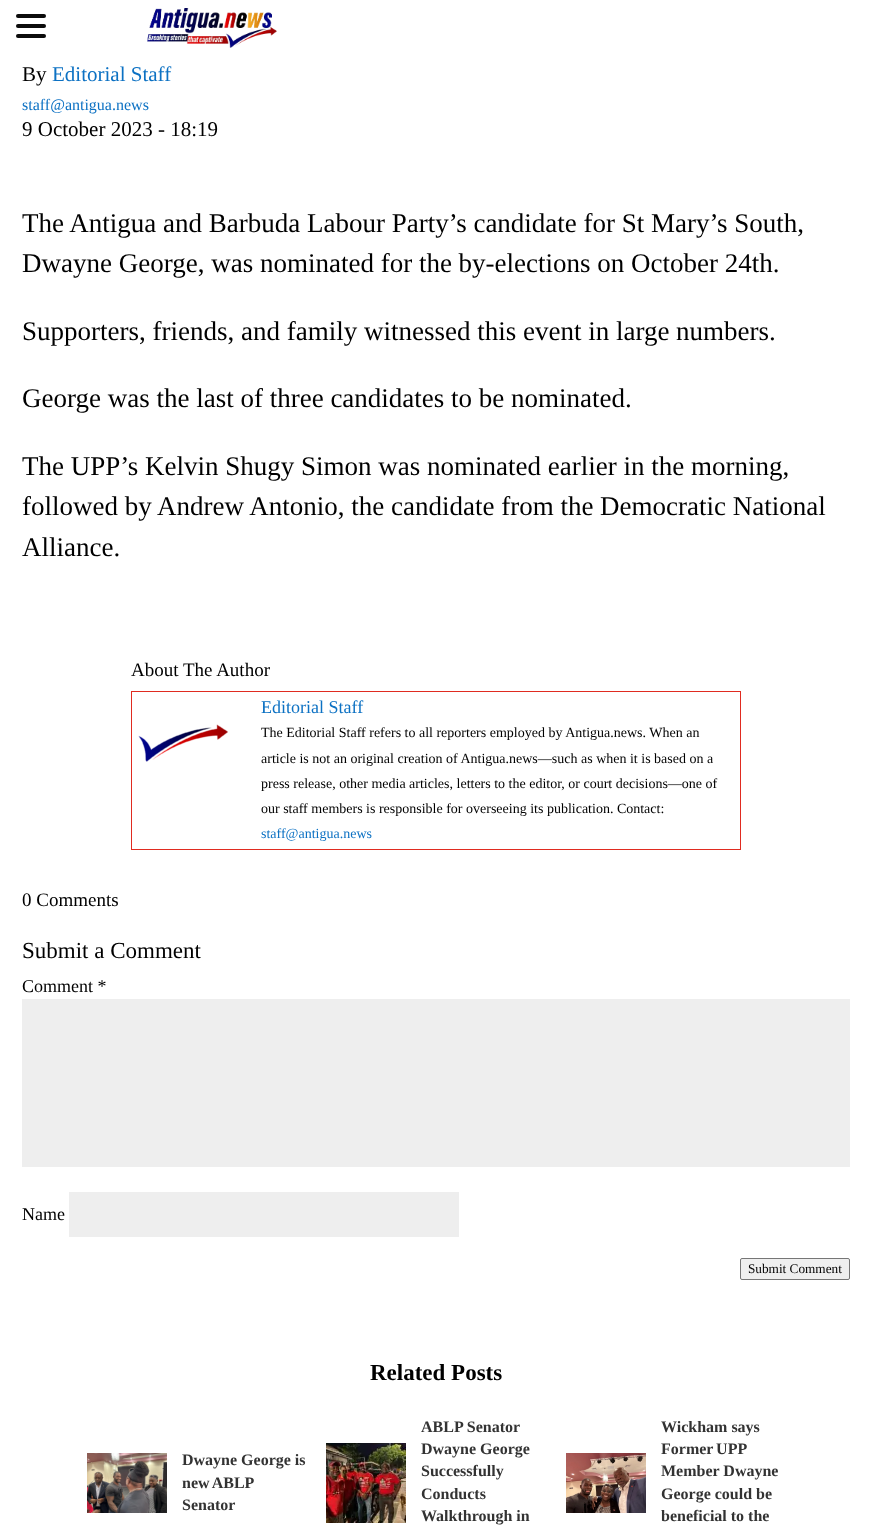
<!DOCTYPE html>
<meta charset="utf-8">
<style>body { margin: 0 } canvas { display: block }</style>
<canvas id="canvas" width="872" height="1536"></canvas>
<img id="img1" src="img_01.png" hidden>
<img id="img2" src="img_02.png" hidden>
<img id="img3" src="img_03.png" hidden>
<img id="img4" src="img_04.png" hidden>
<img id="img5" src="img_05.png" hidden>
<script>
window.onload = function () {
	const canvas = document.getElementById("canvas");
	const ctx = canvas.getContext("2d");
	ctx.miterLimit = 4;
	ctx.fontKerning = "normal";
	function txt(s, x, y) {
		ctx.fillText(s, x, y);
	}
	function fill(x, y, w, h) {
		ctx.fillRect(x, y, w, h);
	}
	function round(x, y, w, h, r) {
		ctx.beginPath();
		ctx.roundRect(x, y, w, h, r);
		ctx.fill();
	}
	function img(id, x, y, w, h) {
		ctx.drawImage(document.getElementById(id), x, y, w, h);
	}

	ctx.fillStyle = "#FFFFFF";
	fill(0, 0, 872, 1536);
	ctx.fillStyle = "#0C0C0C";
	round(16, 14, 30, 4, 2);
	round(16, 24, 30, 4, 2);
	round(16, 34, 30, 4, 2);
	img("img1", 147, 8, 130, 40);
	ctx.strokeStyle = "#E02B20";
	ctx.strokeRect(131.5, 691.5, 609, 158);
	img("img2", 138, 724, 90, 38);
	ctx.fillStyle = "#EEEEEE";
	fill(22, 999, 828, 168);
	fill(69, 1192, 390, 45);
	ctx.fillStyle = "#EFEFEF";
	ctx.beginPath();
	ctx.roundRect(740.5, 1258.5, 109, 21, 1.5);
	ctx.fill();
	ctx.strokeStyle = "#767676";
	ctx.stroke();
	img("img3", 87, 1453, 80, 60);
	img("img4", 326, 1443, 80, 80);
	img("img5", 566, 1453, 80, 60);
	ctx.font = "21px Liberation Serif";
	ctx.fillStyle = "#000000";
	txt("By", 22, 81);
	ctx.fillStyle = "#0C71C3";
	txt("Editorial Staff", 52, 81);
	ctx.font = "16px Liberation Serif";
	txt("staff@antigua.news", 22, 110);
	ctx.font = "21px Liberation Serif";
	ctx.fillStyle = "#000000";
	txt("9 October 2023 - 18:19", 22, 136);
	ctx.font = "27px Liberation Serif";
	txt("The Antigua and Barbuda Labour Party’s candidate for St Mary’s South,", 22, 232);
	txt("Dwayne George, was nominated for the by-elections on October 24th.", 22, 272);
	txt("Supporters, friends, and family witnessed this event in large numbers.", 22, 340);
	txt("George was the last of three candidates to be nominated.", 22, 407);
	txt("The UPP’s Kelvin Shugy Simon was nominated earlier in the morning,", 22, 475);
	txt("followed by Andrew Antonio, the candidate from the Democratic National", 22, 515);
	txt("Alliance.", 22, 556);
	ctx.font = "19px Liberation Serif";
	txt("About The Author", 131, 676);
	ctx.font = "18px Liberation Serif";
	ctx.fillStyle = "#0C71C3";
	txt("Editorial Staff", 261, 713);
	ctx.font = "14px Liberation Serif";
	ctx.fillStyle = "#000000";
	txt("The Editorial Staff refers to all reporters employed by Antigua.news. When an", 261, 737);
	txt("article is not an original creation of Antigua.news—such as when it is based on a", 261, 763);
	txt("press release, other media articles, letters to the editor, or court decisions—one of", 261, 788);
	txt("our staff members is responsible for overseeing its publication. Contact:", 261, 813);
	ctx.fillStyle = "#0C71C3";
	txt("staff@antigua.news", 261, 838);
	ctx.font = "19px Liberation Serif";
	ctx.fillStyle = "#000000";
	txt("0 Comments", 22, 906);
	ctx.font = "23px Liberation Serif";
	txt("Submit a Comment", 22, 958);
	ctx.font = "18px Liberation Serif";
	txt("Comment *", 22, 992);
	txt("Name", 22, 1220);
	ctx.font = "13.25px Liberation Serif";
	txt("Submit Comment", 748, 1273);
	ctx.font = "bold 23px Liberation Serif";
	txt("Related Posts", 370, 1380);
	ctx.font = "bold 16px Liberation Serif";
	ctx.fillStyle = "#333333";
	txt("Dwayne George is", 182, 1465);
	ctx.wordSpacing = "-1px";
	txt("new ABLP", 182, 1488);
	ctx.wordSpacing = "0px";
	txt("Senator", 182, 1510);
	txt("ABLP Senator", 421, 1432);
	txt("Dwayne George", 421, 1454);
	txt("Successfully", 421, 1476);
	txt("Conducts", 421, 1499);
	txt("Walkthrough in", 421, 1521);
	txt("Wickham says", 661, 1432);
	ctx.wordSpacing = "-1px";
	txt("Former UPP", 661, 1454);
	ctx.wordSpacing = "0px";
	txt("Member Dwayne", 661, 1476);
	txt("George could be", 661, 1499);
	txt("beneficial to the", 661, 1521);
};
</script>
